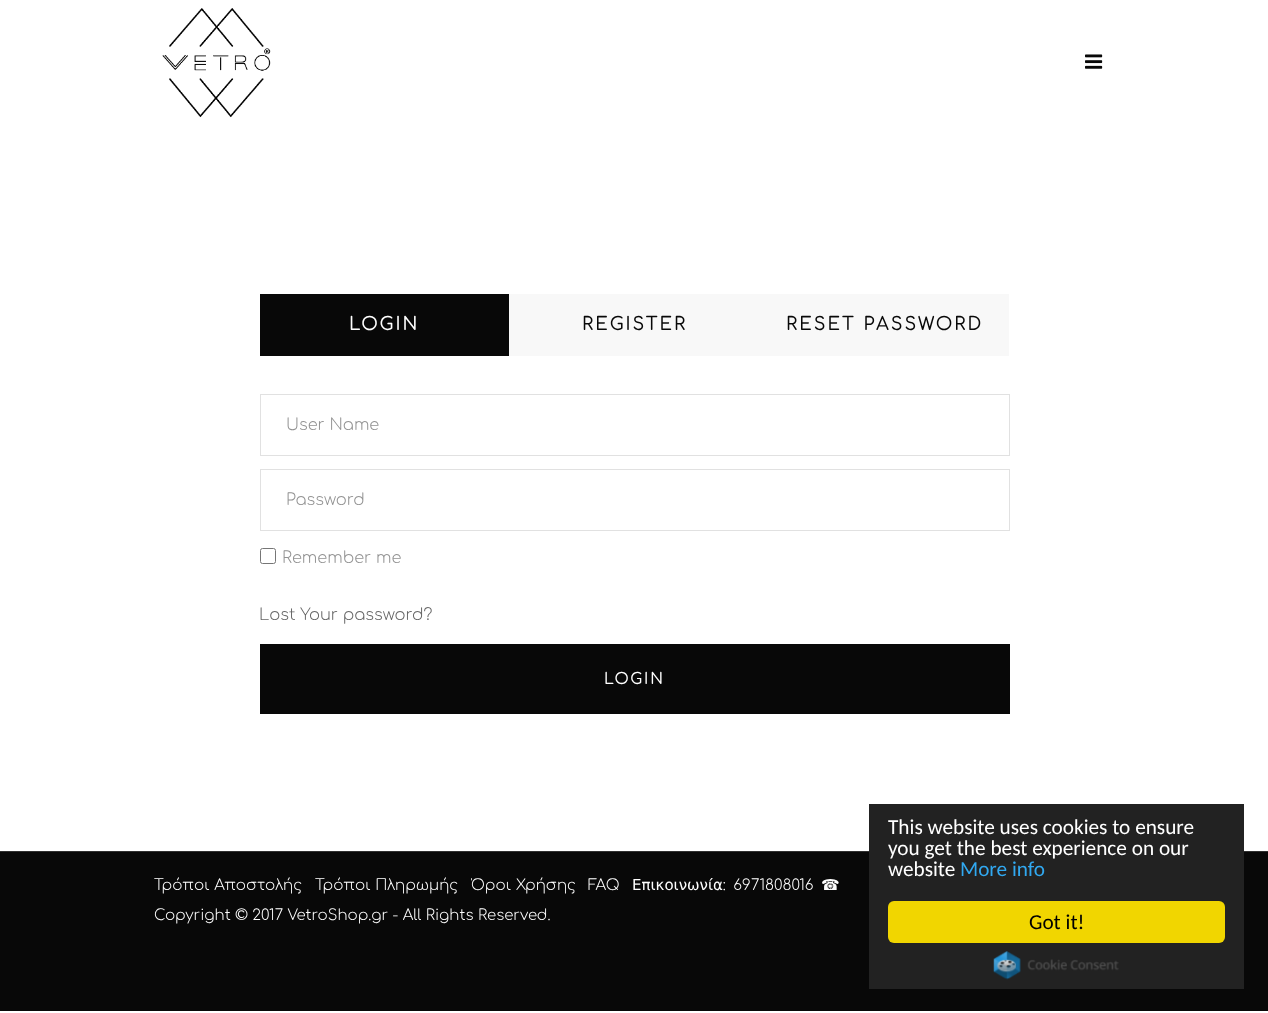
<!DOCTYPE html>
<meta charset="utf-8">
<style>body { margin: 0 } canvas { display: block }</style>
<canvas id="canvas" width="1268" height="1013"></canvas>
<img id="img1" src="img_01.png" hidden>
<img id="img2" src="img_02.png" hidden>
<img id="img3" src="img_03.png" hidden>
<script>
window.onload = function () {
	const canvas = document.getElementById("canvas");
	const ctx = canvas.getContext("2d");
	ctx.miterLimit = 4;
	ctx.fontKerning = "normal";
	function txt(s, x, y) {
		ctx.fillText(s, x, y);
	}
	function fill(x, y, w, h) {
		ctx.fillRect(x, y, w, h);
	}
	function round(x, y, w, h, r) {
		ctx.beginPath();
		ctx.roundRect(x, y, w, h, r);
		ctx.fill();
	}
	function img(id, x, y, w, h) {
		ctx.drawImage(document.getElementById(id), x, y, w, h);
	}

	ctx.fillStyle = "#FFFFFF";
	fill(0, 0, 1268, 1013);
	img("img1", 162, 8, 109, 110);
	img("img2", 1085, 54, 18, 15);
	ctx.fillStyle = "#080808";
	fill(260, 294, 249, 62);
	ctx.fillStyle = "#F8F8F8";
	fill(509, 294, 500, 62);
	ctx.strokeStyle = "#E1E1E1";
	ctx.strokeRect(260.5, 394.5, 749, 61);
	ctx.strokeRect(260.5, 469.5, 749, 61);
	ctx.beginPath();
	ctx.roundRect(260.5, 548.5, 15, 15, 2);
	ctx.strokeStyle = "#767676";
	ctx.stroke();
	ctx.fillStyle = "#080808";
	fill(260, 644, 750, 70);
	fill(0, 852, 1268, 159);
	ctx.fillStyle = "#303030";
	fill(0, 851, 1268, 1);
	ctx.fillStyle = "#222222";
	fill(869, 804, 375, 185);
	ctx.fillStyle = "#F1D600";
	round(888, 901, 337, 42, 6);
	img("img3", 993, 951, 126, 29);
	ctx.letterSpacing = "2.5px";
	ctx.font = "bold 17.5px Comfortaa";
	ctx.fillStyle = "#FFFFFF";
	txt("LOGIN", 349, 330);
	ctx.fillStyle = "#080808";
	txt("REGISTER", 582, 330);
	txt("RESET PASSWORD", 786, 330);
	ctx.letterSpacing = "0px";
	ctx.font = "300 16.25px Comfortaa";
	ctx.fillStyle = "#929292";
	txt("User Name", 286, 430);
	txt("Password", 286, 505);
	txt("Remember me", 282, 563);
	ctx.fillStyle = "#666666";
	txt("Lost Your password?", 259, 620);
	ctx.letterSpacing = "2.25px";
	ctx.font = "bold 15px Comfortaa";
	ctx.fillStyle = "#FFFFFF";
	txt("LOGIN", 604, 684);
	ctx.letterSpacing = "0px";
	ctx.font = "300 15px Comfortaa";
	txt("Τρόποι Αποστολής", 154, 890);
	txt("Τρόποι Πληρωμής", 315, 890);
	ctx.save();
	ctx.beginPath();
	ctx.rect(471, 874, 117, 22);
	ctx.clip();
	txt("Όροι Χρήσης", 471, 890);
	ctx.restore();
	txt("FAQ", 588, 890);
	ctx.font = "15px DejaVu Sans";
	txt("Επικοινωνία", 632, 890);
	ctx.wordSpacing = "3px";
	ctx.font = "300 15px Comfortaa";
	txt(": 6971808016", 723, 890);
	ctx.wordSpacing = "0px";
	ctx.font = "15px DejaVu Sans";
	txt("☎", 821, 890);
	ctx.font = "300 15px Comfortaa";
	txt("Copyright © 2017 VetroShop.gr - All Rights Reserved.", 154, 920);
	ctx.font = "21.25px Carlito";
	txt("This website uses cookies to ensure", 888, 834);
	txt("you get the best experience on our", 888, 855);
	txt("website", 888, 876);
	ctx.fillStyle = "#31A8F0";
	txt("More info", 960, 876);
	ctx.fillStyle = "#000000";
	txt("Got it!", 1029, 929);
};
</script>
